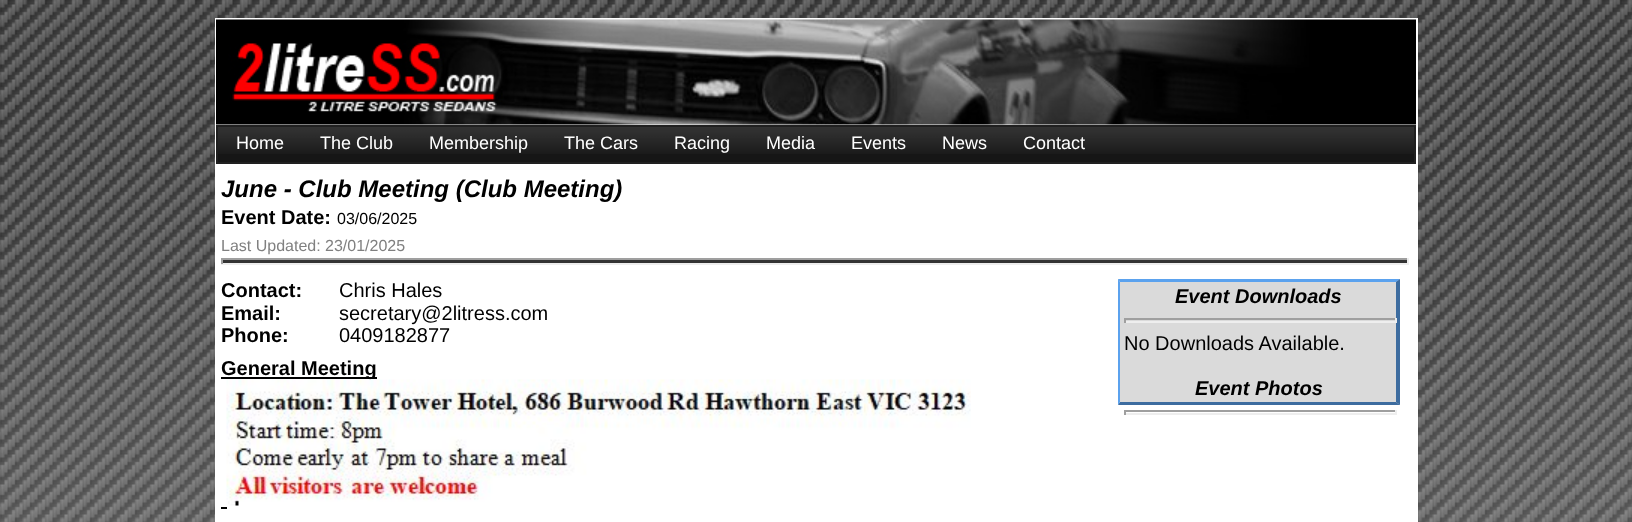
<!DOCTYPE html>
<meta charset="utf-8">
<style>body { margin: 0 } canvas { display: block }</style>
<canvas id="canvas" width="1632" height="522"></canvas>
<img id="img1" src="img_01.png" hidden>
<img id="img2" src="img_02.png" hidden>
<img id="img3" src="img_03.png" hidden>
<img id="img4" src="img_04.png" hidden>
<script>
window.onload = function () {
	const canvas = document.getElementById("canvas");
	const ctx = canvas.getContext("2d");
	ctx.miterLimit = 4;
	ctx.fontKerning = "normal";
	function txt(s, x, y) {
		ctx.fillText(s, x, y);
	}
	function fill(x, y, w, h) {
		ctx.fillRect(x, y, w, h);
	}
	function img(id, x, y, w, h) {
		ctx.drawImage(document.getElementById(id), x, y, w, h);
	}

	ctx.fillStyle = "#FFFFFF";
	fill(0, 0, 1632, 522);
	img("img1", 0, 0, 1632, 522);
	fill(215, 18, 1203, 504);
	img("img2", 216, 19, 1200, 106);
	ctx.fillStyle = "#161616";
	fill(218, 154, 1196, 8);
	img("img3", 218, 127, 1196, 27);
	ctx.strokeStyle = "#202020";
	ctx.lineWidth = 2;
	ctx.strokeRect(217, 126, 1198, 37);
	ctx.fillStyle = "#333333";
	fill(221, 260, 1188, 3);
	ctx.fillStyle = "#9F9F9F";
	fill(221, 258, 1188, 2);
	ctx.fillStyle = "#EEEEEE";
	fill(1407, 258, 2, 6);
	fill(221, 263, 1188, 2);
	ctx.fillStyle = "#9F9F9F";
	fill(221, 258, 2, 6);
	ctx.fillStyle = "#000000";
	fill(221, 377, 156, 2);
	fill(221, 507, 6, 2);
	ctx.fillStyle = "#DADADA";
	fill(1118, 279, 282, 126);
	ctx.fillStyle = "#5BA2EE";
	ctx.beginPath();
	ctx.moveTo(1118, 279);
	ctx.lineTo(1400, 279);
	ctx.lineTo(1396, 282);
	ctx.lineTo(1120, 282);
	ctx.closePath();
	ctx.fill();
	ctx.fillStyle = "#3D6C9F";
	ctx.beginPath();
	ctx.moveTo(1400, 279);
	ctx.lineTo(1400, 405);
	ctx.lineTo(1396, 402);
	ctx.lineTo(1396, 282);
	ctx.closePath();
	ctx.fill();
	ctx.beginPath();
	ctx.moveTo(1400, 405);
	ctx.lineTo(1118, 405);
	ctx.lineTo(1120, 402);
	ctx.lineTo(1396, 402);
	ctx.closePath();
	ctx.fill();
	ctx.fillStyle = "#5BA2EE";
	ctx.beginPath();
	ctx.moveTo(1118, 405);
	ctx.lineTo(1118, 279);
	ctx.lineTo(1120, 282);
	ctx.lineTo(1120, 402);
	ctx.closePath();
	ctx.fill();
	ctx.fillStyle = "#9F9F9F";
	fill(1124, 318, 273, 2);
	ctx.fillStyle = "#EEEEEE";
	fill(1395, 318, 2, 5);
	fill(1124, 321, 273, 2);
	ctx.fillStyle = "#9F9F9F";
	fill(1124, 318, 2, 5);
	fill(1124, 410, 273, 2);
	ctx.fillStyle = "#EEEEEE";
	fill(1395, 410, 2, 5);
	fill(1124, 413, 273, 2);
	ctx.fillStyle = "#9F9F9F";
	fill(1124, 410, 2, 5);
	ctx.font = "18px Liberation Sans";
	ctx.fillStyle = "#FFFFFF";
	txt("Home", 236, 149);
	txt("The Club", 320, 149);
	txt("Membership", 429, 149);
	txt("The Cars", 564, 149);
	txt("Racing", 674, 149);
	txt("Media", 766, 149);
	txt("Events", 851, 149);
	txt("News", 942, 149);
	txt("Contact", 1023, 149);
	ctx.font = "italic bold 24px Liberation Sans";
	ctx.fillStyle = "#000000";
	txt("June - Club Meeting (Club Meeting)", 221, 197);
	ctx.font = "bold 20px Liberation Sans";
	txt("Event Date:", 221, 224);
	ctx.font = "16px Liberation Sans";
	txt("03/06/2025", 337, 224);
	ctx.fillStyle = "#808080";
	txt("Last Updated: 23/01/2025", 221, 251);
	ctx.font = "bold 20px Liberation Sans";
	ctx.fillStyle = "#000000";
	txt("Contact:", 221, 297);
	ctx.font = "20px Liberation Sans";
	txt("Chris Hales", 339, 297);
	ctx.font = "bold 20px Liberation Sans";
	txt("Email:", 221, 320);
	ctx.font = "20px Liberation Sans";
	txt("secretary@2litress.com", 339, 320);
	ctx.font = "bold 20px Liberation Sans";
	txt("Phone:", 221, 342);
	ctx.font = "20px Liberation Sans";
	txt("0409182877", 339, 342);
	ctx.font = "bold 20px Liberation Sans";
	txt("General Meeting", 221, 375);
	img("img4", 226, 379, 745, 127);
	ctx.font = "italic bold 20px Liberation Sans";
	txt("Event Downloads", 1175, 303);
	ctx.font = "20px Liberation Sans";
	txt("No Downloads Available.", 1124, 350);
	ctx.font = "italic bold 20px Liberation Sans";
	txt("Event Photos", 1195, 395);
};
</script>
